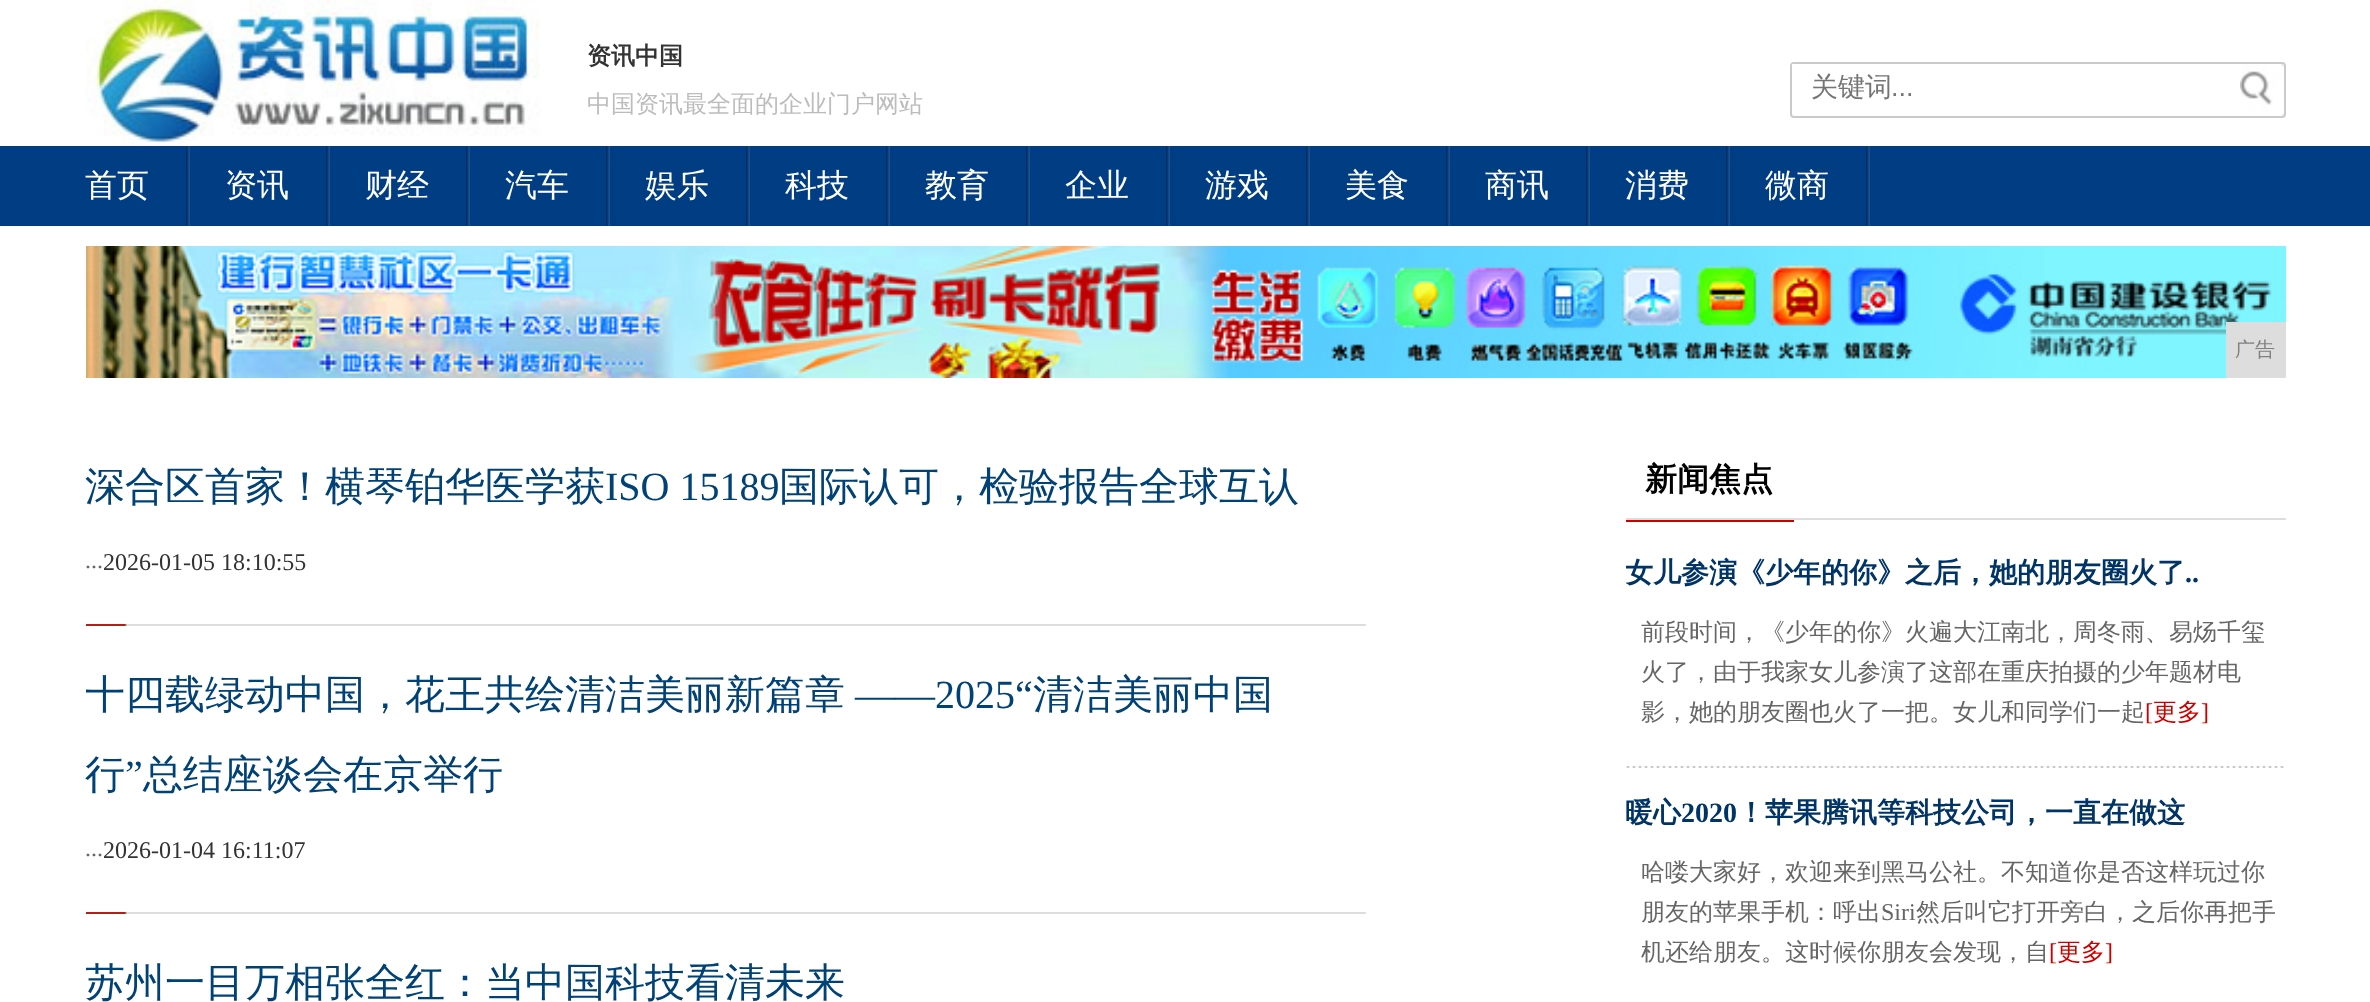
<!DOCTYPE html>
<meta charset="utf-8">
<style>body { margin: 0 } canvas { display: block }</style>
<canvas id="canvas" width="2370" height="1002"></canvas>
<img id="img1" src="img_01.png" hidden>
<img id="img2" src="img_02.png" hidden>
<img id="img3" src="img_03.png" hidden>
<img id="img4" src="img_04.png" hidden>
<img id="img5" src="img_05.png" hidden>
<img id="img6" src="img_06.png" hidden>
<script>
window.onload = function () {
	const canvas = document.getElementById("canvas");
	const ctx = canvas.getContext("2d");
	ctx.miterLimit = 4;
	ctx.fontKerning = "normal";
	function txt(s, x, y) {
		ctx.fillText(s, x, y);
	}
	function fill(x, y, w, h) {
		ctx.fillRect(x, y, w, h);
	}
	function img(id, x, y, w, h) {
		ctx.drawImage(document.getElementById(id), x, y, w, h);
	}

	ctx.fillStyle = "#FFFFFF";
	fill(0, 0, 2370, 1002);
	img("img1", 86, 0, 454, 146);
	ctx.beginPath();
	ctx.roundRect(1791, 63, 494, 54, 3);
	ctx.strokeStyle = "#CACACA";
	ctx.lineWidth = 2;
	ctx.stroke();
	fill(1792, 64, 2, 2);
	img("img2", 2240, 64, 44, 52);
	ctx.fillStyle = "#013D83";
	fill(0, 146, 2370, 80);
	img("img3", 186, 146, 4, 80);
	img("img3", 326, 146, 4, 80);
	img("img3", 466, 146, 4, 80);
	img("img3", 606, 146, 4, 80);
	img("img3", 746, 146, 4, 80);
	img("img3", 886, 146, 4, 80);
	img("img3", 1026, 146, 4, 80);
	img("img3", 1166, 146, 4, 80);
	img("img3", 1306, 146, 4, 80);
	img("img3", 1446, 146, 4, 80);
	img("img3", 1586, 146, 4, 80);
	img("img3", 1726, 146, 4, 80);
	img("img3", 1866, 146, 4, 80);
	img("img4", 86, 246, 2200, 132);
	ctx.fillStyle = "#DDDDDD";
	fill(2226, 322, 60, 56);
	img("img5", 86, 624, 1280, 2);
	img("img5", 86, 912, 1280, 2);
	fill(1626, 518, 660, 2);
	ctx.fillStyle = "#CC0000";
	fill(1626, 520, 168, 2);
	img("img6", 1626, 766, 658, 2);
	ctx.font = "bold 24px WenQuanYi Zen Hei";
	ctx.fillStyle = "#333333";
	txt("资讯中国", 587, 64);
	ctx.font = "500 24px WenQuanYi Zen Hei";
	ctx.fillStyle = "#BCBCBC";
	txt("中国资讯最全面的企业门户网站", 587, 112);
	ctx.font = "500 27px WenQuanYi Zen Hei";
	ctx.fillStyle = "#757575";
	txt("关键词", 1811, 96);
	ctx.font = "27px Liberation Sans";
	txt("...", 1891, 96);
	ctx.font = "500 32px WenQuanYi Zen Hei";
	ctx.fillStyle = "#FFFFFF";
	txt("首页", 85, 196);
	txt("资讯", 225, 196);
	txt("财经", 365, 196);
	txt("汽车", 505, 196);
	txt("娱乐", 645, 196);
	txt("科技", 785, 196);
	txt("教育", 925, 196);
	txt("企业", 1065, 196);
	txt("游戏", 1205, 196);
	txt("美食", 1345, 196);
	txt("商讯", 1485, 196);
	txt("消费", 1625, 196);
	txt("微商", 1765, 196);
	ctx.font = "500 20px WenQuanYi Zen Hei";
	ctx.fillStyle = "#808080";
	txt("广告", 2235, 356);
	ctx.font = "500 40px WenQuanYi Zen Hei";
	ctx.fillStyle = "#004276";
	txt("深合区首家！横琴铂华医学获", 85, 500);
	ctx.font = "40px Liberation Serif";
	txt("ISO 15189", 605, 500);
	ctx.font = "500 40px WenQuanYi Zen Hei";
	txt("国际认可，检验报告全球互认", 779, 500);
	ctx.font = "24px Liberation Serif";
	ctx.fillStyle = "#666666";
	txt("...", 85, 568);
	ctx.fillStyle = "#333333";
	txt("2026-01-05 18:10:55", 103, 570);
	ctx.save();
	ctx.beginPath();
	ctx.rect(86, 654, 1280, 160);
	ctx.clip();
	ctx.font = "500 40px WenQuanYi Zen Hei";
	ctx.fillStyle = "#004276";
	txt("十四载绿动中国，花王共绘清洁美丽新篇章", 85, 708);
	ctx.restore();
	ctx.font = "40px Liberation Serif";
	ctx.fillStyle = "#004276";
	txt("——2025“", 855, 708);
	ctx.font = "500 40px WenQuanYi Zen Hei";
	txt("清洁美丽中国", 1033, 708);
	txt("行", 85, 788);
	ctx.font = "40px Liberation Serif";
	txt("”", 125, 788);
	ctx.font = "500 40px WenQuanYi Zen Hei";
	txt("总结座谈会在京举行", 143, 788);
	ctx.font = "24px Liberation Serif";
	ctx.fillStyle = "#666666";
	txt("...", 85, 856);
	ctx.fillStyle = "#333333";
	txt("2026-01-04 16:11:07", 103, 858);
	ctx.save();
	ctx.beginPath();
	ctx.rect(86, 942, 1280, 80);
	ctx.clip();
	ctx.font = "500 40px WenQuanYi Zen Hei";
	ctx.fillStyle = "#004276";
	txt("苏州一目万相张全红：当中国科技看清未来", 85, 996);
	ctx.restore();
	ctx.font = "bold 32px WenQuanYi Zen Hei";
	ctx.fillStyle = "#000000";
	txt("新闻焦点", 1645, 490);
	ctx.save();
	ctx.beginPath();
	ctx.rect(1626, 552, 660, 216);
	ctx.clip();
	ctx.font = "bold 28px WenQuanYi Zen Hei";
	ctx.fillStyle = "#003366";
	txt("女儿参演《少年的你》之后，她的朋友圈火了", 1625, 582);
	ctx.restore();
	ctx.font = "bold 28px Liberation Serif";
	ctx.fillStyle = "#003366";
	txt("..", 2185, 582);
	ctx.font = "500 24px WenQuanYi Zen Hei";
	ctx.fillStyle = "#666666";
	txt("前段时间，《少年的你》火遍大江南北，周冬雨、易炀千玺", 1641, 640);
	txt("火了，由于我家女儿参演了这部在重庆拍摄的少年题材电", 1641, 680);
	txt("影，她的朋友圈也火了一把。女儿和同学们一起", 1641, 720);
	ctx.font = "24px Liberation Serif";
	ctx.fillStyle = "#CC0000";
	txt("[", 2145, 720);
	ctx.font = "500 24px WenQuanYi Zen Hei";
	txt("更多", 2153, 720);
	ctx.font = "24px Liberation Serif";
	txt("]", 2201, 720);
	ctx.font = "bold 28px WenQuanYi Zen Hei";
	ctx.fillStyle = "#003366";
	txt("暖心", 1625, 822);
	ctx.font = "bold 28px Liberation Serif";
	txt("2020", 1681, 822);
	ctx.font = "bold 28px WenQuanYi Zen Hei";
	txt("！苹果腾讯等科技公司，一直在做这", 1737, 822);
	ctx.font = "500 24px WenQuanYi Zen Hei";
	ctx.fillStyle = "#666666";
	txt("哈喽大家好，欢迎来到黑马公社。不知道你是否这样玩过你", 1641, 880);
	txt("朋友的苹果手机：呼出", 1641, 920);
	ctx.font = "24px Liberation Serif";
	txt("Siri", 1881, 920);
	ctx.font = "500 24px WenQuanYi Zen Hei";
	txt("然后叫它打开旁白，之后你再把手", 1916, 920);
	txt("机还给朋友。这时候你朋友会发现，自", 1641, 960);
	ctx.font = "24px Liberation Serif";
	ctx.fillStyle = "#CC0000";
	txt("[", 2049, 960);
	ctx.font = "500 24px WenQuanYi Zen Hei";
	txt("更多", 2057, 960);
	ctx.font = "24px Liberation Serif";
	txt("]", 2105, 960);
};
</script>
